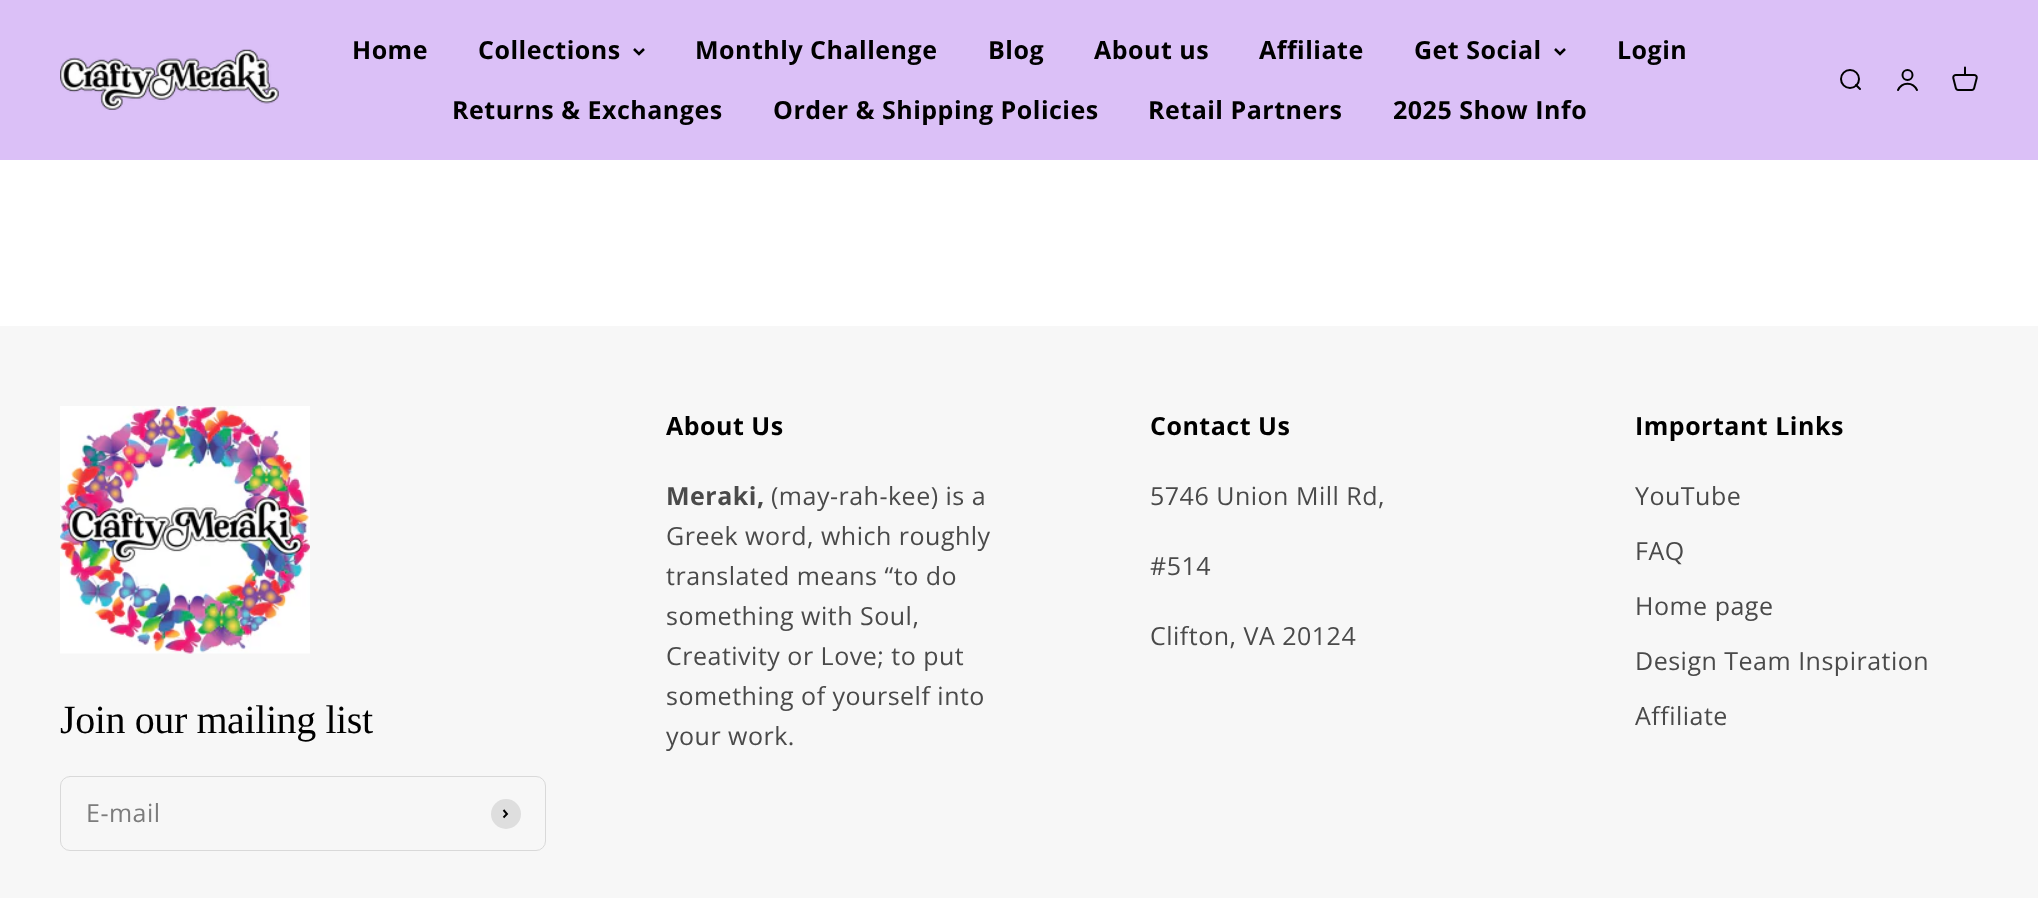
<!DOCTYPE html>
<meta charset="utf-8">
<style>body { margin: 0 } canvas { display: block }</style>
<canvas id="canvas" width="2038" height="898"></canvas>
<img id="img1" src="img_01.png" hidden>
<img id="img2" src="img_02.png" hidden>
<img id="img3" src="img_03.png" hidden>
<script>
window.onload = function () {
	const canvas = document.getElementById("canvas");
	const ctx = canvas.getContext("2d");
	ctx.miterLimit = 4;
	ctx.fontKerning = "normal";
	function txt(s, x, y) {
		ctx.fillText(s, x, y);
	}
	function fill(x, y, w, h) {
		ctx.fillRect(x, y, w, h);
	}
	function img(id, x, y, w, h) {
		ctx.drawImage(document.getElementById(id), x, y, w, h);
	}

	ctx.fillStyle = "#FFFFFF";
	fill(0, 0, 2038, 898);
	ctx.fillStyle = "#DBC0F7";
	fill(0, 0, 2038, 160);
	img("img1", 60, 49, 219, 61);
	ctx.beginPath();
	ctx.moveTo(634, 49);
	ctx.lineTo(639, 54);
	ctx.lineTo(644, 49);
	ctx.strokeStyle = "#000000";
	ctx.lineWidth = 2.5;
	ctx.stroke();
	ctx.beginPath();
	ctx.moveTo(1555, 49);
	ctx.lineTo(1560, 54);
	ctx.lineTo(1565, 49);
	ctx.stroke();
	ctx.beginPath();
	ctx.arc(1850, 79, 9, 0, Math.PI * 2);
	ctx.lineWidth = 2;
	ctx.stroke();
	ctx.beginPath();
	ctx.moveTo(1856, 85);
	ctx.lineTo(1860, 89);
	ctx.lineCap = "round";
	ctx.lineJoin = "round";
	ctx.stroke();
	ctx.beginPath();
	ctx.arc(1907.5, 75, 5, 0, Math.PI * 2);
	ctx.stroke();
	ctx.beginPath();
	ctx.moveTo(1898, 90);
	ctx.bezierCurveTo(1902, 81.5, 1913, 81.5, 1917, 90);
	ctx.lineJoin = "miter";
	ctx.stroke();
	img("img2", 1952, 66, 26, 25);
	ctx.fillStyle = "#F7F7F7";
	fill(0, 326, 2038, 572);
	img("img3", 60, 406, 250, 248);
	ctx.beginPath();
	ctx.roundRect(60.5, 776.5, 485, 74, 9.5);
	ctx.strokeStyle = "#D9D9D9";
	ctx.lineWidth = 1;
	ctx.stroke();
	ctx.fillStyle = "#DEDEDE";
	ctx.beginPath();
	ctx.arc(506, 814, 15, 0, Math.PI * 2);
	ctx.fill();
	ctx.beginPath();
	ctx.moveTo(503.5, 817.5);
	ctx.lineTo(507, 814);
	ctx.lineTo(503.5, 810);
	ctx.strokeStyle = "#000000";
	ctx.lineWidth = 1.9;
	ctx.lineCap = "butt";
	ctx.stroke();
	ctx.letterSpacing = "0.5px";
	ctx.font = "bold 25px Open Sans";
	ctx.fillStyle = "#000000";
	txt("Home", 352, 59);
	txt("Collections", 478, 59);
	txt("Monthly Challenge", 695, 59);
	txt("Blog", 988, 59);
	txt("About us", 1094, 59);
	txt("Affiliate", 1259, 59);
	txt("Get Social", 1414, 59);
	txt("Login", 1617, 59);
	txt("Returns & Exchanges", 452, 119);
	txt("Order & Shipping Policies", 773, 119);
	txt("Retail Partners", 1148, 119);
	txt("2025 Show Info", 1393, 119);
	txt("About Us", 666, 435);
	ctx.fillStyle = "#4A4A4A";
	txt("Meraki,", 666, 505);
	ctx.font = "25px Open Sans";
	txt("(may-rah-kee) is a", 771, 505);
	txt("Greek word, which roughly", 666, 545);
	txt("translated means “to do", 666, 585);
	txt("something with Soul,", 666, 625);
	txt("Creativity or Love; to put", 666, 665);
	txt("something of yourself into", 666, 705);
	txt("your work.", 666, 745);
	ctx.font = "bold 25px Open Sans";
	ctx.fillStyle = "#000000";
	txt("Contact Us", 1150, 435);
	ctx.font = "25px Open Sans";
	ctx.fillStyle = "#4A4A4A";
	txt("5746 Union Mill Rd,", 1150, 505);
	txt("#514", 1150, 575);
	txt("Clifton, VA 20124", 1150, 645);
	ctx.font = "bold 25px Open Sans";
	ctx.fillStyle = "#000000";
	txt("Important Links", 1635, 435);
	ctx.font = "25px Open Sans";
	ctx.fillStyle = "#4A4A4A";
	txt("YouTube", 1635, 505);
	txt("FAQ", 1635, 560);
	txt("Home page", 1635, 615);
	txt("Design Team Inspiration", 1635, 670);
	txt("Affiliate", 1635, 725);
	ctx.letterSpacing = "-0.4px";
	ctx.font = "40px Liberation Serif";
	ctx.fillStyle = "#000000";
	txt("Join our mailing list", 60, 733);
	ctx.letterSpacing = "0.5px";
	ctx.font = "25px Open Sans";
	ctx.fillStyle = "#7C7C7C";
	txt("E-mail", 86, 822);
};
</script>
